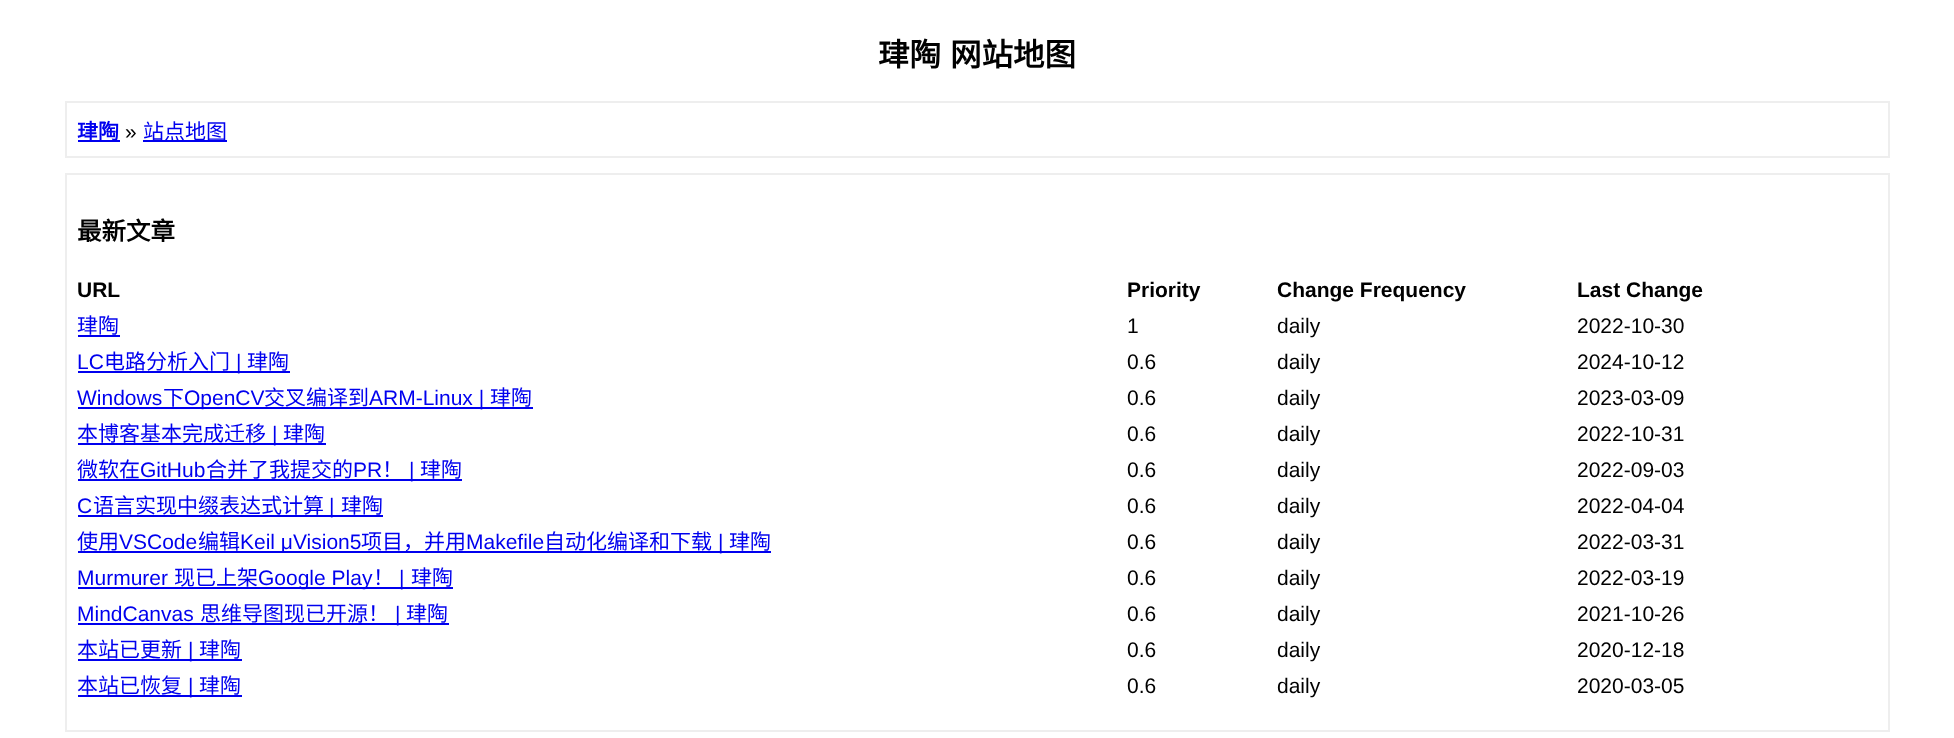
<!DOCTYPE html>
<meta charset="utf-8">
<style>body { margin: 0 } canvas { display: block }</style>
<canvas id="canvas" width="1954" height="738"></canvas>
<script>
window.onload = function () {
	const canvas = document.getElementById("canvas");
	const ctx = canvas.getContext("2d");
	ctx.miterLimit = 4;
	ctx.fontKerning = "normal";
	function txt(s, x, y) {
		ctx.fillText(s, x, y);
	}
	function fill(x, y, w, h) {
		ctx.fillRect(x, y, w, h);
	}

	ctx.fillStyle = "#FFFFFF";
	fill(0, 0, 1954, 738);
	ctx.strokeStyle = "#EEEEEE";
	ctx.lineWidth = 2;
	ctx.strokeRect(66, 102, 1823, 55);
	ctx.fillStyle = "#0000EE";
	fill(78, 140, 42, 2);
	fill(143, 140, 84, 2);
	ctx.strokeRect(66, 174, 1823, 557);
	fill(78, 335, 42, 2);
	fill(78, 371, 212, 2);
	fill(78, 407, 455, 2);
	fill(78, 443, 248, 2);
	fill(78, 479, 384, 2);
	fill(78, 515, 305, 2);
	fill(78, 551, 693, 2);
	fill(78, 587, 375, 2);
	fill(78, 623, 371, 2);
	fill(78, 659, 164, 2);
	fill(78, 695, 164, 2);
	ctx.wordSpacing = "2px";
	ctx.font = "bold 31.5px Noto Sans CJK SC";
	ctx.fillStyle = "#000000";
	txt("珒陶 网站地图", 878, 66);
	ctx.wordSpacing = "0px";
	ctx.font = "bold 21px Noto Sans CJK SC";
	ctx.fillStyle = "#0000EE";
	txt("珒陶", 77, 139);
	ctx.font = "21px Liberation Sans";
	ctx.fillStyle = "#000000";
	txt("»", 125, 139);
	ctx.font = "21px Noto Sans CJK SC";
	ctx.fillStyle = "#0000EE";
	txt("站点地图", 143, 139);
	ctx.font = "bold 24.5px Noto Sans CJK SC";
	ctx.fillStyle = "#000000";
	txt("最新文章", 77, 240);
	ctx.font = "bold 21px Liberation Sans";
	txt("URL", 77, 297);
	txt("Priority", 1127, 297);
	txt("Change Frequency", 1277, 297);
	txt("Last Change", 1577, 297);
	ctx.font = "21px Noto Sans CJK SC";
	ctx.fillStyle = "#0000EE";
	txt("珒陶", 77, 333);
	ctx.font = "21px Liberation Sans";
	ctx.fillStyle = "#000000";
	txt("1", 1127, 333);
	txt("daily", 1277, 333);
	txt("2022-10-30", 1577, 333);
	ctx.fillStyle = "#0000EE";
	txt("LC", 77, 369);
	ctx.font = "21px Noto Sans CJK SC";
	txt("电路分析入门", 104, 369);
	ctx.font = "21px Liberation Sans";
	txt("|", 236, 369);
	ctx.font = "21px Noto Sans CJK SC";
	txt("珒陶", 247, 369);
	ctx.font = "21px Liberation Sans";
	ctx.fillStyle = "#000000";
	txt("0.6", 1127, 369);
	txt("daily", 1277, 369);
	txt("2024-10-12", 1577, 369);
	ctx.fillStyle = "#0000EE";
	txt("Windows", 77, 405);
	ctx.font = "21px Noto Sans CJK SC";
	txt("下", 163, 405);
	ctx.font = "21px Liberation Sans";
	txt("OpenCV", 184, 405);
	ctx.font = "21px Noto Sans CJK SC";
	txt("交叉编译到", 264, 405);
	ctx.font = "21px Liberation Sans";
	txt("ARM-Linux |", 369, 405);
	ctx.font = "21px Noto Sans CJK SC";
	txt("珒陶", 490, 405);
	ctx.font = "21px Liberation Sans";
	ctx.fillStyle = "#000000";
	txt("0.6", 1127, 405);
	txt("daily", 1277, 405);
	txt("2023-03-09", 1577, 405);
	ctx.font = "21px Noto Sans CJK SC";
	ctx.fillStyle = "#0000EE";
	txt("本博客基本完成迁移", 77, 441);
	ctx.font = "21px Liberation Sans";
	txt("|", 272, 441);
	ctx.font = "21px Noto Sans CJK SC";
	txt("珒陶", 283, 441);
	ctx.font = "21px Liberation Sans";
	ctx.fillStyle = "#000000";
	txt("0.6", 1127, 441);
	txt("daily", 1277, 441);
	txt("2022-10-31", 1577, 441);
	ctx.font = "21px Noto Sans CJK SC";
	ctx.fillStyle = "#0000EE";
	txt("微软在", 77, 477);
	ctx.font = "21px Liberation Sans";
	txt("GitHub", 140, 477);
	ctx.font = "21px Noto Sans CJK SC";
	txt("合并了我提交的", 206, 477);
	ctx.font = "21px Liberation Sans";
	txt("PR", 353, 477);
	ctx.font = "21px Noto Sans CJK SC";
	txt("！", 382, 477);
	ctx.font = "21px Liberation Sans";
	txt("|", 409, 477);
	ctx.font = "21px Noto Sans CJK SC";
	txt("珒陶", 420, 477);
	ctx.font = "21px Liberation Sans";
	ctx.fillStyle = "#000000";
	txt("0.6", 1127, 477);
	txt("daily", 1277, 477);
	txt("2022-09-03", 1577, 477);
	ctx.fillStyle = "#0000EE";
	txt("C", 77, 513);
	ctx.font = "21px Noto Sans CJK SC";
	txt("语言实现中缀表达式计算", 93, 513);
	ctx.font = "21px Liberation Sans";
	txt("|", 329, 513);
	ctx.font = "21px Noto Sans CJK SC";
	txt("珒陶", 341, 513);
	ctx.font = "21px Liberation Sans";
	ctx.fillStyle = "#000000";
	txt("0.6", 1127, 513);
	txt("daily", 1277, 513);
	txt("2022-04-04", 1577, 513);
	ctx.font = "21px Noto Sans CJK SC";
	ctx.fillStyle = "#0000EE";
	txt("使用", 77, 549);
	ctx.font = "21px Liberation Sans";
	txt("VSCode", 119, 549);
	ctx.font = "21px Noto Sans CJK SC";
	txt("编辑", 198, 549);
	ctx.font = "21px Liberation Sans";
	txt("Keil μVision5", 240, 549);
	ctx.font = "21px Noto Sans CJK SC";
	txt("项目，并用", 361, 549);
	ctx.font = "21px Liberation Sans";
	txt("Makefile", 466, 549);
	ctx.font = "21px Noto Sans CJK SC";
	txt("自动化编译和下载", 544, 549);
	ctx.font = "21px Liberation Sans";
	txt("|", 718, 549);
	ctx.font = "21px Noto Sans CJK SC";
	txt("珒陶", 729, 549);
	ctx.font = "21px Liberation Sans";
	ctx.fillStyle = "#000000";
	txt("0.6", 1127, 549);
	txt("daily", 1277, 549);
	txt("2022-03-31", 1577, 549);
	ctx.fillStyle = "#0000EE";
	txt("Murmurer", 77, 585);
	ctx.font = "21px Noto Sans CJK SC";
	txt("现已上架", 174, 585);
	ctx.font = "21px Liberation Sans";
	txt("Google Play", 258, 585);
	ctx.font = "21px Noto Sans CJK SC";
	txt("！", 373, 585);
	ctx.font = "21px Liberation Sans";
	txt("|", 399, 585);
	ctx.font = "21px Noto Sans CJK SC";
	txt("珒陶", 411, 585);
	ctx.font = "21px Liberation Sans";
	ctx.fillStyle = "#000000";
	txt("0.6", 1127, 585);
	txt("daily", 1277, 585);
	txt("2022-03-19", 1577, 585);
	ctx.fillStyle = "#0000EE";
	txt("MindCanvas", 77, 621);
	ctx.font = "21px Noto Sans CJK SC";
	txt("思维导图现已开源！", 200, 621);
	ctx.font = "21px Liberation Sans";
	txt("|", 395, 621);
	ctx.font = "21px Noto Sans CJK SC";
	txt("珒陶", 406, 621);
	ctx.font = "21px Liberation Sans";
	ctx.fillStyle = "#000000";
	txt("0.6", 1127, 621);
	txt("daily", 1277, 621);
	txt("2021-10-26", 1577, 621);
	ctx.font = "21px Noto Sans CJK SC";
	ctx.fillStyle = "#0000EE";
	txt("本站已更新", 77, 657);
	ctx.font = "21px Liberation Sans";
	txt("|", 188, 657);
	ctx.font = "21px Noto Sans CJK SC";
	txt("珒陶", 199, 657);
	ctx.font = "21px Liberation Sans";
	ctx.fillStyle = "#000000";
	txt("0.6", 1127, 657);
	txt("daily", 1277, 657);
	txt("2020-12-18", 1577, 657);
	ctx.font = "21px Noto Sans CJK SC";
	ctx.fillStyle = "#0000EE";
	txt("本站已恢复", 77, 693);
	ctx.font = "21px Liberation Sans";
	txt("|", 188, 693);
	ctx.font = "21px Noto Sans CJK SC";
	txt("珒陶", 199, 693);
	ctx.font = "21px Liberation Sans";
	ctx.fillStyle = "#000000";
	txt("0.6", 1127, 693);
	txt("daily", 1277, 693);
	txt("2020-03-05", 1577, 693);
};
</script>
